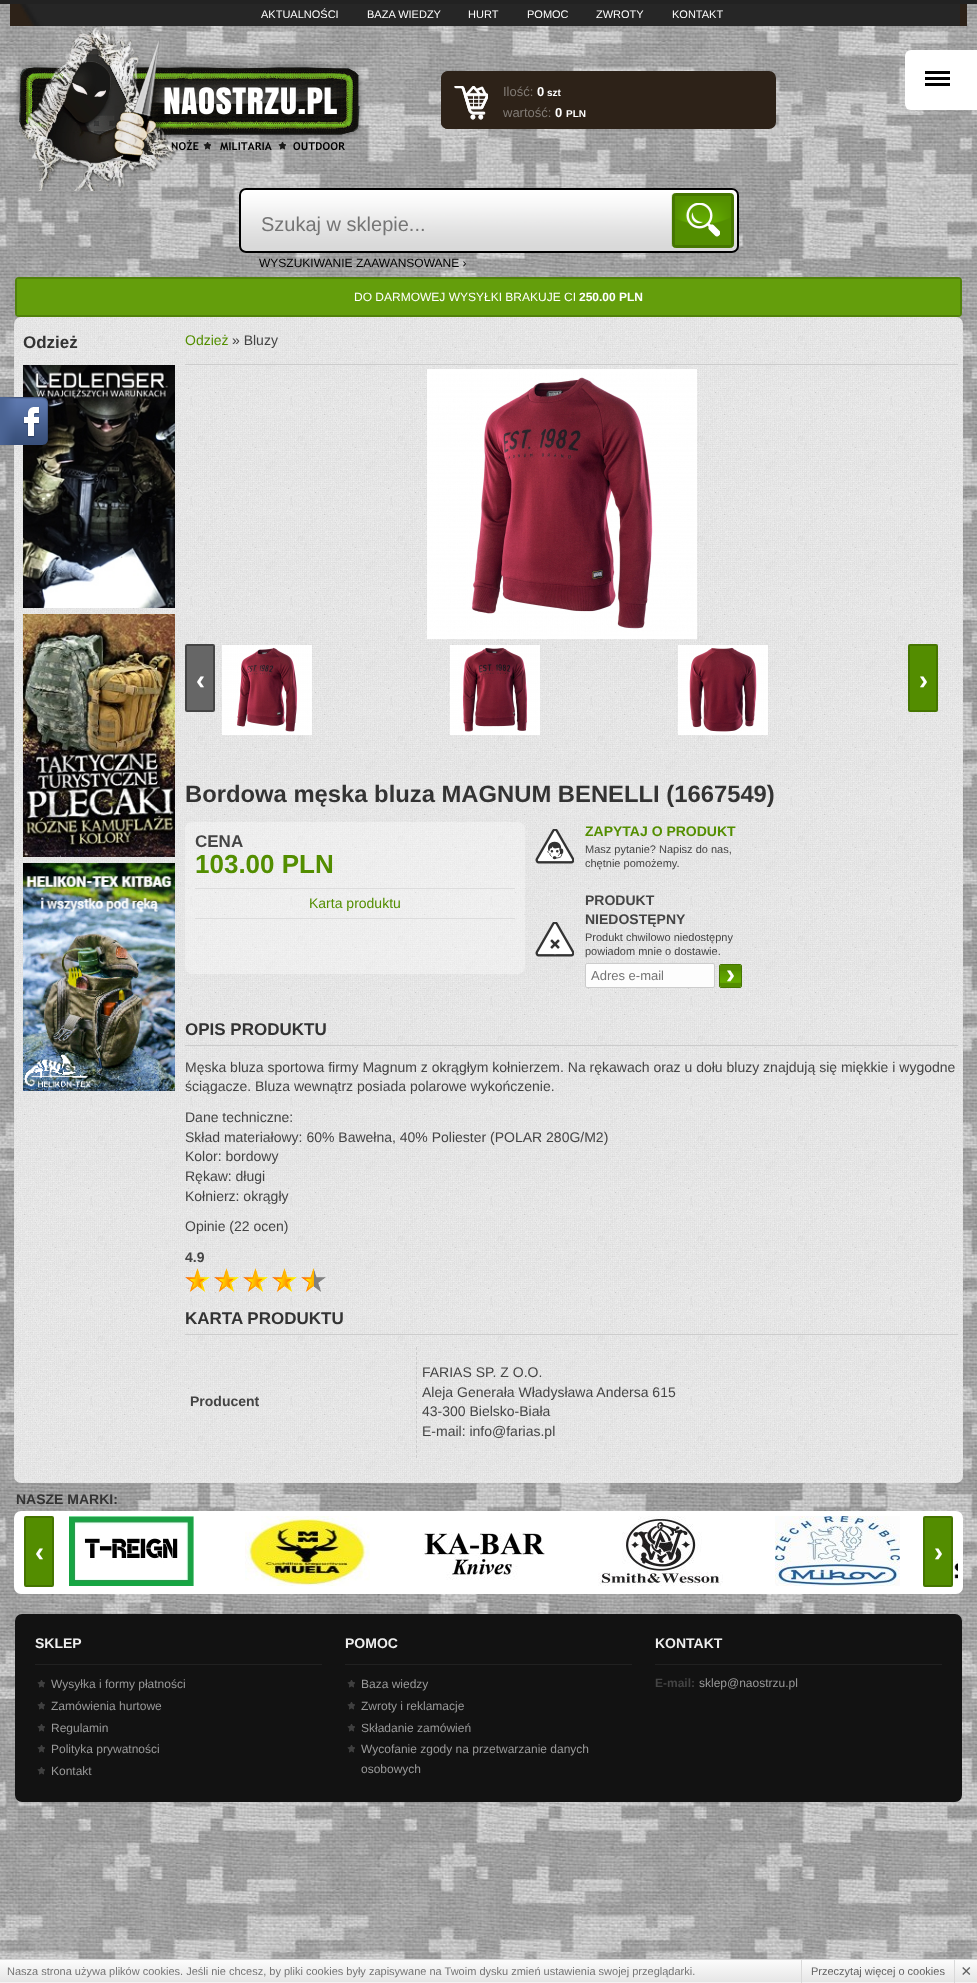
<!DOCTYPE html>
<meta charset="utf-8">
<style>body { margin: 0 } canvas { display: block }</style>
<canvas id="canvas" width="977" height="1983"></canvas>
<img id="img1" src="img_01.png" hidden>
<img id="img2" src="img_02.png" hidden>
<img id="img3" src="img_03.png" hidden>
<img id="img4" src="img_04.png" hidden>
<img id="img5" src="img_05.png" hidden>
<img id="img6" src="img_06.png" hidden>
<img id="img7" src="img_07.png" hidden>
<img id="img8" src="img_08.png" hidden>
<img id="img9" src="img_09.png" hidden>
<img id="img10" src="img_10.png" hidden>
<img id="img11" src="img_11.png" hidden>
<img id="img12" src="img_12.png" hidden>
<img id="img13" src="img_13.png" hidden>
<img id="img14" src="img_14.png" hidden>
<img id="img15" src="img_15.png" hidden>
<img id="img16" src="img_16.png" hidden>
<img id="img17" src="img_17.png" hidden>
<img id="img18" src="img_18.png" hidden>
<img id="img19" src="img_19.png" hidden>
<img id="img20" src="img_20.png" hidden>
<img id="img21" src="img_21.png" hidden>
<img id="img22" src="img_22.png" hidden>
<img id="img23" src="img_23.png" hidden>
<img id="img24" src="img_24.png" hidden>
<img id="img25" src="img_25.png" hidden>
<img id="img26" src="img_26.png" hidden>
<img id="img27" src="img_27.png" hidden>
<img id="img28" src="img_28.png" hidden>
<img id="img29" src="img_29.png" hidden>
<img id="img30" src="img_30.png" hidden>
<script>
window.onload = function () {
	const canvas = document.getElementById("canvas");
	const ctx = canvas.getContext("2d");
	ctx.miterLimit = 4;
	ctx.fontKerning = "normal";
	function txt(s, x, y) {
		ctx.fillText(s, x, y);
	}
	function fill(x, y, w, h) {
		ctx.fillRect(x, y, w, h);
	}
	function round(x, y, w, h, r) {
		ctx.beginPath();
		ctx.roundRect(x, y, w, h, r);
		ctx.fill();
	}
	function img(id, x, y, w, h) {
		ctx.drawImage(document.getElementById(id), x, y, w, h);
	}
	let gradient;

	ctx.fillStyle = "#FFFFFF";
	fill(0, 0, 977, 1983);
	img("img1", 0, 4, 977, 1955);
	ctx.fillStyle = "#222222";
	fill(0, 0, 977, 4);
	ctx.fillStyle = "#2D2218";
	fill(10, 4, 957, 22);
	img("img2", 20, 4, 940, 22);
	ctx.fillStyle = "#FFFFFF";
	round(905, 50, 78, 60, 6);
	ctx.fillStyle = "#000000";
	fill(925, 71, 25, 3);
	fill(925, 77, 25, 3);
	fill(925, 83, 25, 3);
	img("img3", 14, 26, 350, 165);
	ctx.fillStyle = "#2D2218";
	round(441, 71, 335, 58, 7);
	img("img4", 441, 71, 47, 58);
	img("img5", 239, 188, 499, 65);
	ctx.beginPath();
	ctx.roundRect(240, 189, 498, 63, 6);
	ctx.strokeStyle = "#000000";
	ctx.lineWidth = 2;
	ctx.stroke();
	ctx.beginPath();
	ctx.roundRect(16, 278, 945, 38, 3);
	ctx.strokeStyle = "#51810A";
	ctx.stroke();
	ctx.fillStyle = "#649E0C";
	fill(17, 279, 943, 36);
	img("img6", 14, 317, 949, 1166);
	img("img7", 23, 365, 152, 243);
	img("img8", 23, 614, 152, 243);
	img("img9", 23, 863, 152, 228);
	ctx.fillStyle = "#CCCCCC";
	fill(185, 364, 773, 1);
	img("img10", 427, 369, 270, 270);
	ctx.fillStyle = "#666666";
	ctx.beginPath();
	ctx.roundRect(186, 645, 28, 66, 1);
	ctx.fill();
	ctx.strokeStyle = "#444444";
	ctx.stroke();
	img("img11", 222, 645, 90, 90);
	img("img12", 450, 645, 90, 90);
	img("img13", 678, 645, 90, 90);
	ctx.fillStyle = "#538D00";
	ctx.beginPath();
	ctx.roundRect(909, 645, 28, 66, 1);
	ctx.fill();
	ctx.strokeStyle = "#457500";
	ctx.stroke();
	img("img14", 185, 822, 340, 152);
	ctx.fillStyle = "#DCDCDC";
	fill(195, 888, 320, 1);
	fill(195, 918, 320, 1);
	img("img15", 535, 829, 39, 35);
	img("img16", 535, 922, 39, 35);
	ctx.fillStyle = "#FDFDFD";
	ctx.beginPath();
	ctx.roundRect(585.5, 963.5, 129, 24, 1.5);
	ctx.fill();
	ctx.strokeStyle = "#CCCCCC";
	ctx.lineWidth = 1;
	ctx.stroke();
	ctx.fillStyle = "#538D00";
	round(720, 965, 21, 22, 1);
	img("img17", 720, 971, 21, 12);
	ctx.beginPath();
	ctx.roundRect(719.5, 964.5, 22, 23, 1.5);
	ctx.strokeStyle = "#457500";
	ctx.stroke();
	ctx.fillStyle = "#CCCCCC";
	fill(185, 1045, 773, 1);
	img("img18", 185, 1268, 25, 24);
	img("img19", 214, 1268, 25, 24);
	img("img20", 243, 1268, 25, 24);
	img("img21", 272, 1268, 25, 24);
	img("img22", 301, 1268, 25, 24);
	fill(185, 1334, 773, 1);
	ctx.beginPath();
	ctx.moveTo(416.5, 1347);
	ctx.lineTo(416.5, 1458);
	ctx.strokeStyle = "#CCCCCC";
	ctx.setLineDash([3, 1.91]);
	ctx.stroke();
	ctx.fillStyle = "#FFFFFF";
	round(14, 1511, 949, 83, 7);
	ctx.fillStyle = "#538D00";
	ctx.beginPath();
	ctx.roundRect(25, 1517, 28, 69, 1);
	ctx.fill();
	ctx.strokeStyle = "#457500";
	ctx.lineWidth = 2;
	ctx.setLineDash([]);
	ctx.stroke();
	img("img23", 69, 1516, 125, 70);
	img("img24", 245, 1516, 125, 70);
	img("img25", 422, 1532, 123, 48);
	img("img26", 598, 1516, 125, 70);
	img("img27", 775, 1516, 125, 70);
	img("img28", 953, 1558, 5, 22);
	ctx.beginPath();
	ctx.roundRect(924, 1517, 28, 69, 1);
	ctx.fill();
	ctx.stroke();
	ctx.fillStyle = "#121212";
	round(15, 1614, 947, 188, 7);
	ctx.fillStyle = "#212121";
	fill(35, 1664, 287, 1);
	img("img29", 37, 1680, 8, 8);
	img("img29", 37, 1702, 8, 8);
	img("img29", 37, 1724, 8, 8);
	img("img29", 37, 1745, 8, 8);
	img("img29", 37, 1767, 8, 8);
	fill(345, 1664, 287, 1);
	img("img29", 347, 1680, 8, 8);
	img("img29", 347, 1702, 8, 8);
	img("img29", 347, 1724, 8, 8);
	img("img29", 347, 1745, 8, 8);
	fill(655, 1664, 287, 1);
	img("img30", 0, 397, 48, 48);
	ctx.fillStyle = "#F3F3F3";
	fill(0, 1982, 977, 1);
	gradient = ctx.createLinearGradient(489, 1960, 489, 1982);
	gradient.addColorStop(0, "#FCFCFC");
	gradient.addColorStop(1, "#E6E6E6");
	ctx.fillStyle = gradient;
	fill(0, 1960, 977, 22);
	ctx.fillStyle = "#D9D9D9";
	fill(0, 1959, 977, 1);
	fill(801, 1960, 1, 23);
	fill(954, 1960, 1, 23);
	ctx.font = "11px Liberation Sans";
	ctx.fillStyle = "#FFFFFF";
	txt("AKTUALNOŚCI", 261, 18);
	txt("BAZA WIEDZY", 367, 18);
	txt("HURT", 468, 18);
	txt("POMOC", 527, 18);
	txt("ZWROTY", 596, 18);
	txt("KONTAKT", 672, 18);
	ctx.font = "13px Liberation Sans";
	ctx.fillStyle = "#817B75";
	txt("Ilość:", 503, 96);
	ctx.font = "bold 13px Liberation Sans";
	ctx.fillStyle = "#FFFFFF";
	txt("0", 537, 96);
	ctx.font = "bold 10px Liberation Sans";
	txt("szt", 547, 96);
	ctx.font = "13px Liberation Sans";
	ctx.fillStyle = "#817B75";
	txt("wartość:", 503, 117);
	ctx.font = "bold 13px Liberation Sans";
	ctx.fillStyle = "#FFFFFF";
	txt("0", 555, 117);
	ctx.font = "bold 10px Liberation Sans";
	txt("PLN", 566, 117);
	ctx.font = "20px Liberation Sans";
	ctx.fillStyle = "#757575";
	txt("Szukaj w sklepie...", 261, 231);
	ctx.font = "12px Liberation Sans";
	ctx.fillStyle = "#000000";
	txt("WYSZUKIWANIE ZAAWANSOWANE ›", 259, 267);
	ctx.fillStyle = "#FFFFFF";
	txt("DO DARMOWEJ WYSYŁKI BRAKUJE CI", 354, 301);
	ctx.font = "bold 12px Liberation Sans";
	txt("250.00 PLN", 579, 301);
	ctx.font = "bold 17px Liberation Sans";
	ctx.fillStyle = "#333333";
	txt("Odzież", 23, 348);
	ctx.font = "14px Liberation Sans";
	ctx.fillStyle = "#538E00";
	txt("Odzież", 185, 345);
	ctx.fillStyle = "#444444";
	txt("» Bluzy", 232, 345);
	ctx.font = "bold 27px Liberation Sans";
	ctx.fillStyle = "#FFFFFF";
	txt("‹", 196, 689);
	txt("›", 919, 689);
	ctx.font = "bold 23.8px Liberation Sans";
	ctx.fillStyle = "#333333";
	txt("Bordowa męska bluza MAGNUM BENELLI (1667549)", 185, 802);
	ctx.font = "bold 17px Liberation Sans";
	ctx.fillStyle = "#444444";
	txt("CENA", 195, 847);
	ctx.font = "bold 26px Liberation Sans";
	ctx.fillStyle = "#538E00";
	txt("103.00 PLN", 195, 873);
	ctx.font = "14px Liberation Sans";
	txt("Karta produktu", 309, 908);
	ctx.font = "bold 14px Liberation Sans";
	txt("ZAPYTAJ O PRODUKT", 585, 836);
	ctx.font = "11px Liberation Sans";
	ctx.fillStyle = "#444444";
	txt("Masz pytanie? Napisz do nas,", 585, 853);
	txt("chętnie pomożemy.", 585, 867);
	ctx.font = "bold 14px Liberation Sans";
	txt("PRODUKT", 585, 905);
	txt("NIEDOSTĘPNY", 585, 924);
	ctx.font = "11px Liberation Sans";
	txt("Produkt chwilowo niedostępny", 585, 941);
	txt("powiadom mnie o dostawie.", 585, 955);
	ctx.font = "13px Liberation Sans";
	ctx.fillStyle = "#757575";
	txt("Adres e-mail", 591, 980);
	ctx.font = "bold 27px Liberation Sans";
	ctx.fillStyle = "#FFFFFF";
	txt("›", 726, 983);
	ctx.font = "bold 17px Liberation Sans";
	ctx.fillStyle = "#333333";
	txt("OPIS PRODUKTU", 185, 1035);
	ctx.font = "14px Liberation Sans";
	ctx.fillStyle = "#444444";
	txt("Męska bluza sportowa firmy Magnum z okrągłym kołnierzem. Na rękawach oraz u dołu bluzy znajdują się miękkie i wygodne", 185, 1072);
	txt("ściągacze. Bluza wewnątrz posiada polarowe wykończenie.", 185, 1091);
	txt("Dane techniczne:", 185, 1122);
	txt("Skład materiałowy: 60% Bawełna, 40% Poliester (POLAR 280G/M2)", 185, 1142);
	txt("Kolor: bordowy", 185, 1161);
	txt("Rękaw: długi", 185, 1181);
	txt("Kołnierz: okrągły", 185, 1201);
	txt("Opinie (22 ocen)", 185, 1231);
	ctx.font = "bold 14px Liberation Sans";
	txt("4.9", 185, 1262);
	ctx.font = "bold 17px Liberation Sans";
	ctx.fillStyle = "#333333";
	txt("KARTA PRODUKTU", 185, 1324);
	ctx.font = "bold 14px Liberation Sans";
	ctx.fillStyle = "#444444";
	txt("Producent", 190, 1406);
	ctx.font = "14px Liberation Sans";
	txt("FARIAS SP. Z O.O.", 422, 1377);
	txt("Aleja Generała Władysława Andersa 615", 422, 1397);
	txt("43-300 Bielsko-Biała", 422, 1416);
	txt("E-mail: info@farias.pl", 422, 1436);
	ctx.font = "bold 14px Liberation Sans";
	ctx.fillStyle = "#333333";
	txt("NASZE MARKI:", 16, 1504);
	ctx.font = "bold 27px Liberation Sans";
	ctx.fillStyle = "#FFFFFF";
	txt("‹", 35, 1561);
	txt("›", 934, 1561);
	ctx.font = "bold 14px Liberation Sans";
	ctx.fillStyle = "#EEEEEE";
	txt("SKLEP", 35, 1648);
	ctx.font = "12px Liberation Sans";
	ctx.fillStyle = "#999999";
	txt("Wysyłka i formy płatności", 51, 1688);
	txt("Zamówienia hurtowe", 51, 1710);
	txt("Regulamin", 51, 1732);
	txt("Polityka prywatności", 51, 1753);
	txt("Kontakt", 51, 1775);
	ctx.font = "bold 14px Liberation Sans";
	ctx.fillStyle = "#EEEEEE";
	txt("POMOC", 345, 1648);
	ctx.font = "12px Liberation Sans";
	ctx.fillStyle = "#999999";
	txt("Baza wiedzy", 361, 1688);
	txt("Zwroty i reklamacje", 361, 1710);
	txt("Składanie zamówień", 361, 1732);
	txt("Wycofanie zgody na przetwarzanie danych", 361, 1753);
	txt("osobowych", 361, 1773);
	ctx.font = "bold 14px Liberation Sans";
	ctx.fillStyle = "#EEEEEE";
	txt("KONTAKT", 655, 1648);
	ctx.font = "bold 12px Liberation Sans";
	ctx.fillStyle = "#444444";
	txt("E-mail:", 655, 1687);
	ctx.font = "12px Liberation Sans";
	ctx.fillStyle = "#999999";
	txt("sklep@naostrzu.pl", 699, 1687);
	ctx.font = "11px Liberation Sans";
	ctx.fillStyle = "#757575";
	txt("Nasza strona używa plików cookies. Jeśli nie chcesz, by pliki cookies były zapisywane na Twoim dysku zmień ustawienia swojej przeglądarki.", 7, 1975);
	ctx.fillStyle = "#636363";
	txt("Przeczytaj więcej o cookies", 811, 1975);
	ctx.font = "18px Liberation Sans";
	txt("×", 961, 1977);
};
</script>
